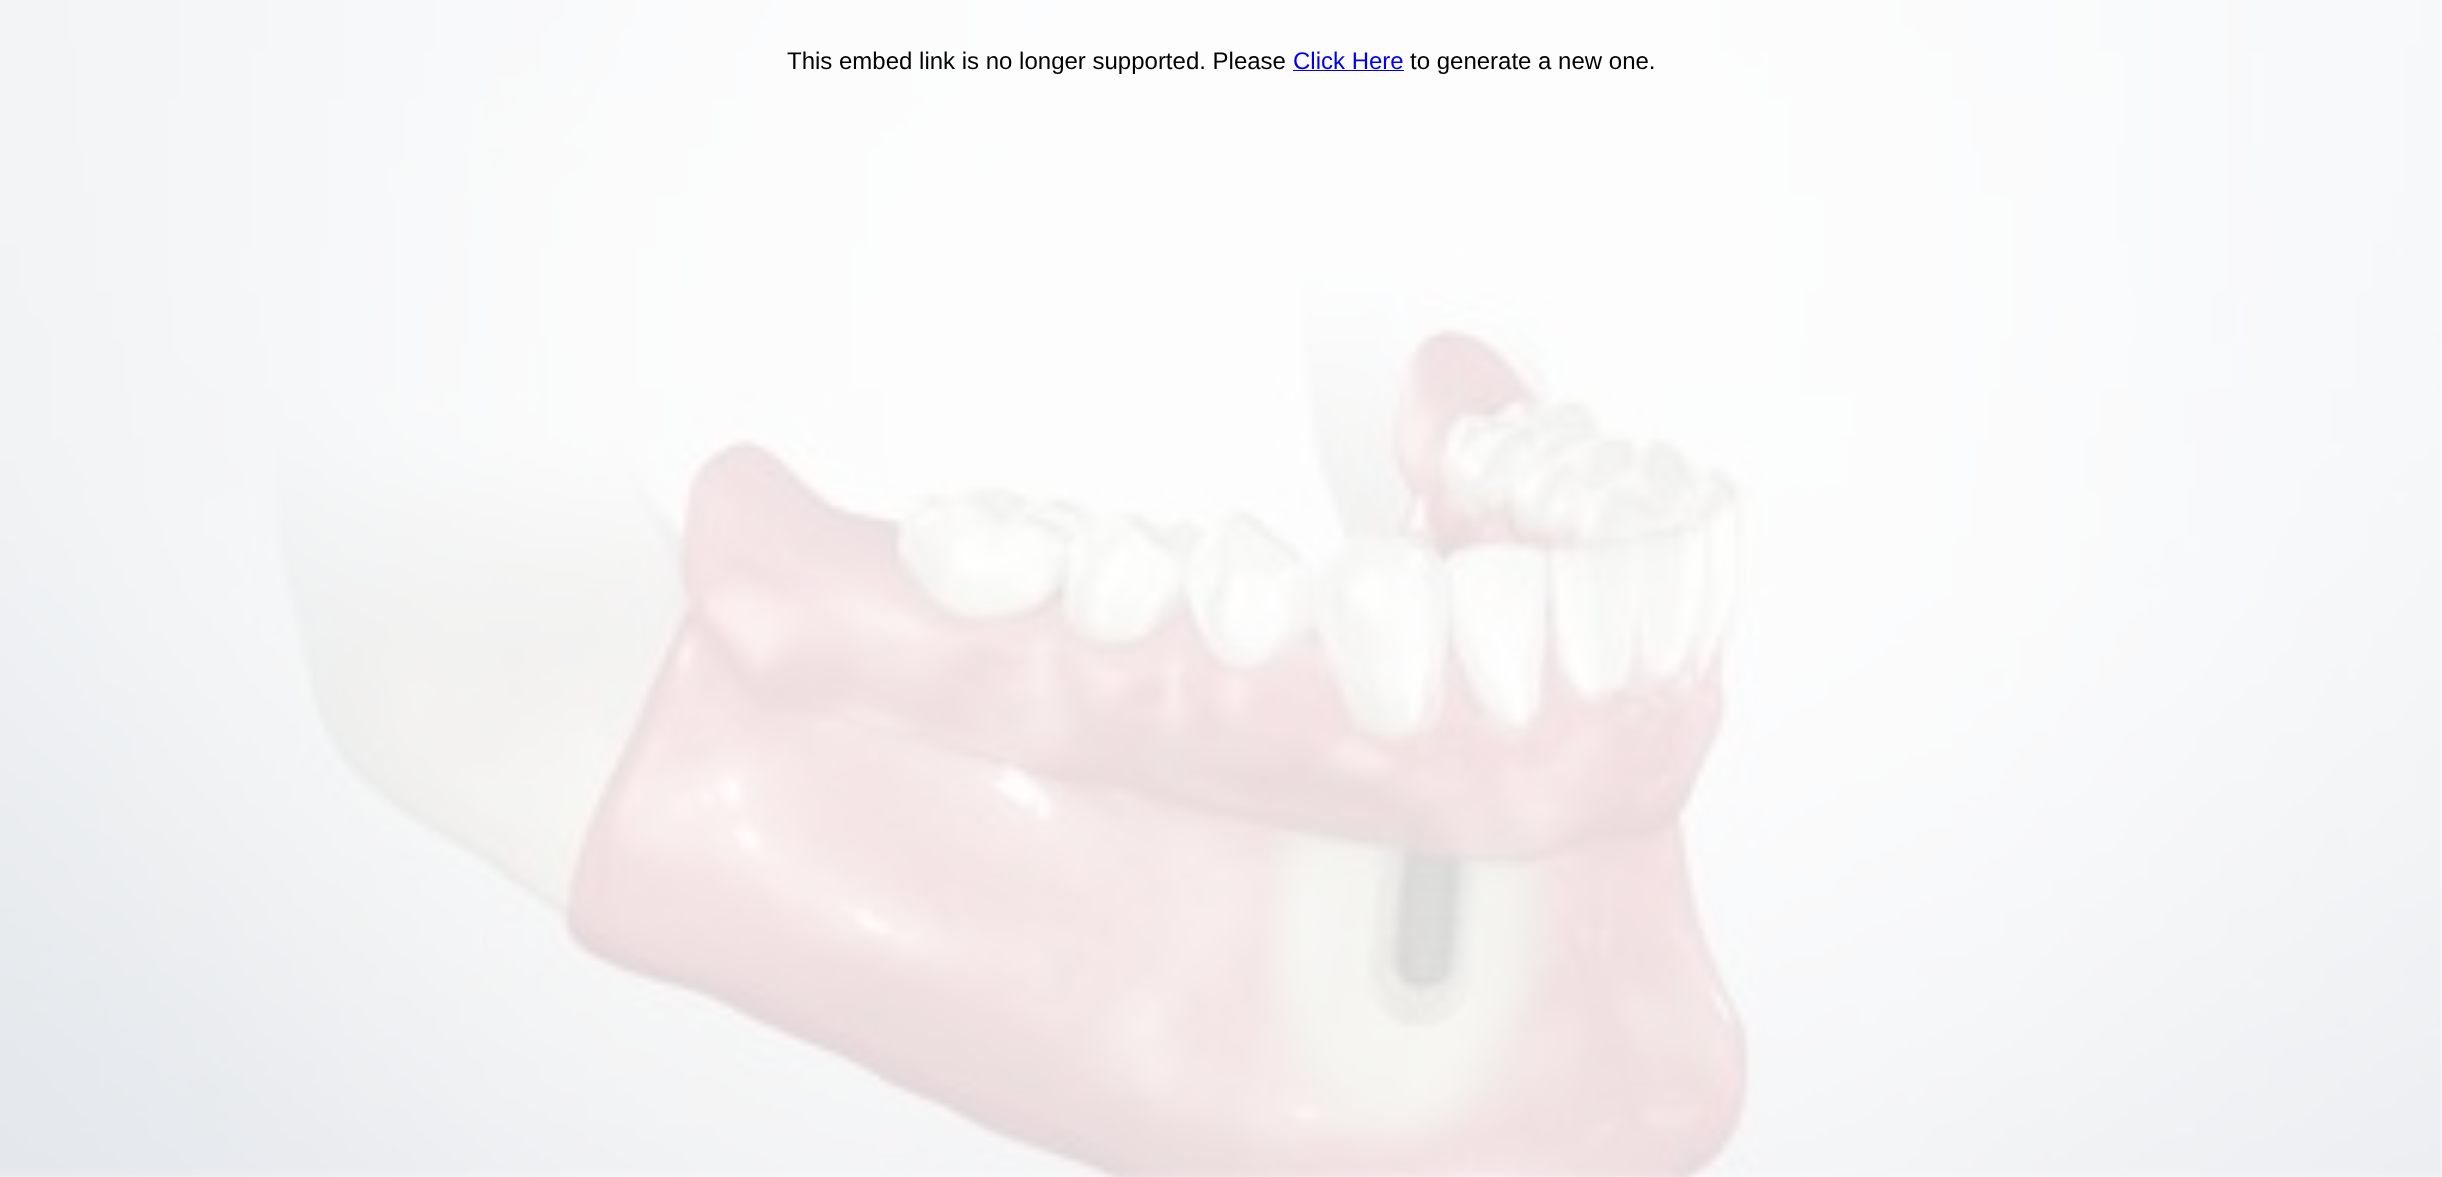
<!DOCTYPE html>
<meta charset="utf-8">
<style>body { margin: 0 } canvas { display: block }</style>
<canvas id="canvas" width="2442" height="1177"></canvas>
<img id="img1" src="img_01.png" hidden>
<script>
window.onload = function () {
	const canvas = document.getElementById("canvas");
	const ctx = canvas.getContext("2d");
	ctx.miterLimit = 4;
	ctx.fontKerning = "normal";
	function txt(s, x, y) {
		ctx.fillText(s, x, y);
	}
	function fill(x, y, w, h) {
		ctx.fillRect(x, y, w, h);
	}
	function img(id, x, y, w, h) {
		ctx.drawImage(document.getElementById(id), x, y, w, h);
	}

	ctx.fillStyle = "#FFFFFF";
	fill(0, 0, 2442, 1177);
	img("img1", 0, 0, 2442, 1177);
	ctx.fillStyle = "#0000EE";
	fill(1293, 70, 111, 1);
	ctx.font = "24px Liberation Sans";
	ctx.fillStyle = "#000000";
	txt("This embed link is no longer supported. Please", 787, 69);
	ctx.fillStyle = "#0000EE";
	txt("Click Here", 1293, 69);
	ctx.fillStyle = "#000000";
	txt("to generate a new one.", 1410, 69);
};
</script>
